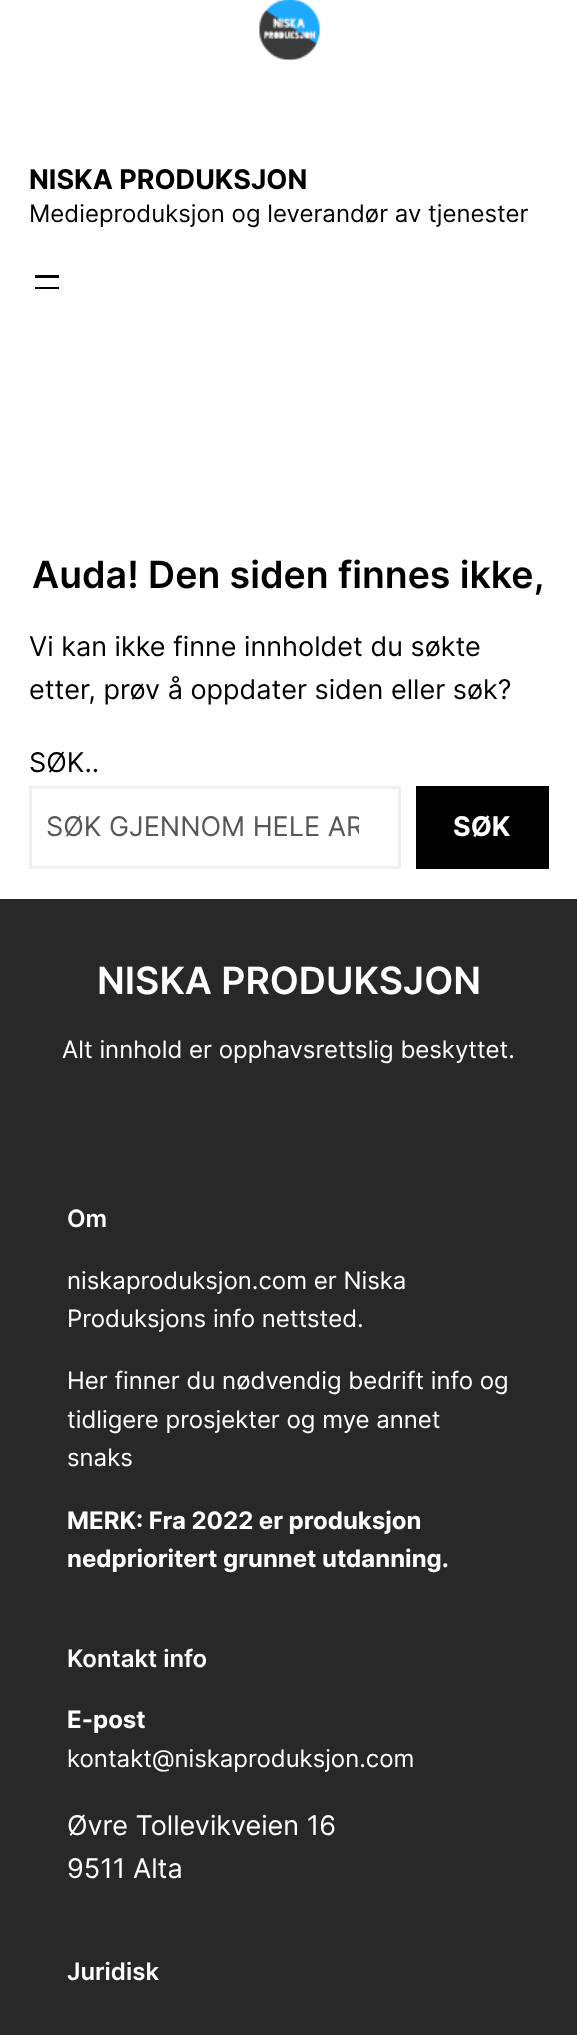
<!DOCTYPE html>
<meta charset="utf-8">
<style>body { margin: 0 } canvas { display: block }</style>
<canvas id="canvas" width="577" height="2035"></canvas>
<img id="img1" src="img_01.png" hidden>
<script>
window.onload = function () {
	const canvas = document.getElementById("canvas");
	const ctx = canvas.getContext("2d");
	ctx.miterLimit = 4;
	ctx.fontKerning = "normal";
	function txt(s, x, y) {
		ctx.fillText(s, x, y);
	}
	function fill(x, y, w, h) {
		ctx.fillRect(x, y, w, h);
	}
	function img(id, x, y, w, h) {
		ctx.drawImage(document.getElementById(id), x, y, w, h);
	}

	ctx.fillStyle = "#FFFFFF";
	fill(0, 0, 577, 2035);
	img("img1", 259, 0, 62, 61);
	ctx.fillStyle = "#000000";
	fill(35, 275, 24, 3);
	fill(35, 287, 24, 2);
	ctx.strokeStyle = "#EFEFEF";
	ctx.lineWidth = 3;
	ctx.strokeRect(30.5, 787.5, 369, 80);
	fill(416, 786, 133, 83);
	ctx.fillStyle = "#292828";
	fill(0, 899, 577, 1136);
	ctx.font = "bold 27px Inter";
	ctx.fillStyle = "#000000";
	txt("NISKA PRODUKSJON", 29, 189);
	ctx.font = "24px Inter";
	txt("Medieproduksjon og leverandør av tjenester", 29, 222);
	ctx.font = "600 37.5px Inter";
	txt("Auda! Den siden finnes ikke,", 32, 588);
	ctx.font = "27px Inter";
	txt("Vi kan ikke finne innholdet du søkte", 29, 656);
	txt("etter, prøv å oppdater siden eller søk?", 29, 699);
	txt("SØK..", 29, 772);
	ctx.save();
	ctx.beginPath();
	ctx.rect(47, 810, 312, 32);
	ctx.clip();
	ctx.fillStyle = "#575757";
	txt("SØK GJENNOM HELE AR", 46, 836);
	ctx.restore();
	ctx.font = "bold 27px Inter";
	ctx.fillStyle = "#FFFFFF";
	txt("SØK", 453, 836);
	ctx.font = "600 37.5px Inter";
	txt("NISKA PRODUKSJON", 97, 994);
	ctx.font = "24px Inter";
	txt("Alt innhold er opphavsrettslig beskyttet.", 62, 1058);
	ctx.font = "600 24px Inter";
	txt("Om", 67, 1227);
	ctx.font = "24px Inter";
	txt("niskaproduksjon.com er Niska", 67, 1289);
	txt("Produksjons info nettsted.", 67, 1327);
	txt("Her finner du nødvendig bedrift info og", 67, 1389);
	txt("tidligere prosjekter og mye annet", 67, 1428);
	txt("snaks", 67, 1466);
	ctx.font = "bold 24px Inter";
	txt("MERK: Fra 2022 er produksjon", 67, 1529);
	txt("nedprioritert grunnet utdanning.", 67, 1567);
	ctx.font = "600 24px Inter";
	txt("Kontakt info", 67, 1667);
	ctx.font = "bold 24px Inter";
	txt("E-post", 67, 1728);
	ctx.font = "24px Inter";
	txt("kontakt@niskaproduksjon.com", 67, 1767);
	ctx.font = "27px Inter";
	txt("Øvre Tollevikveien 16", 67, 1835);
	txt("9511 Alta", 67, 1878);
	ctx.font = "600 24px Inter";
	txt("Juridisk", 67, 1980);
};
</script>
